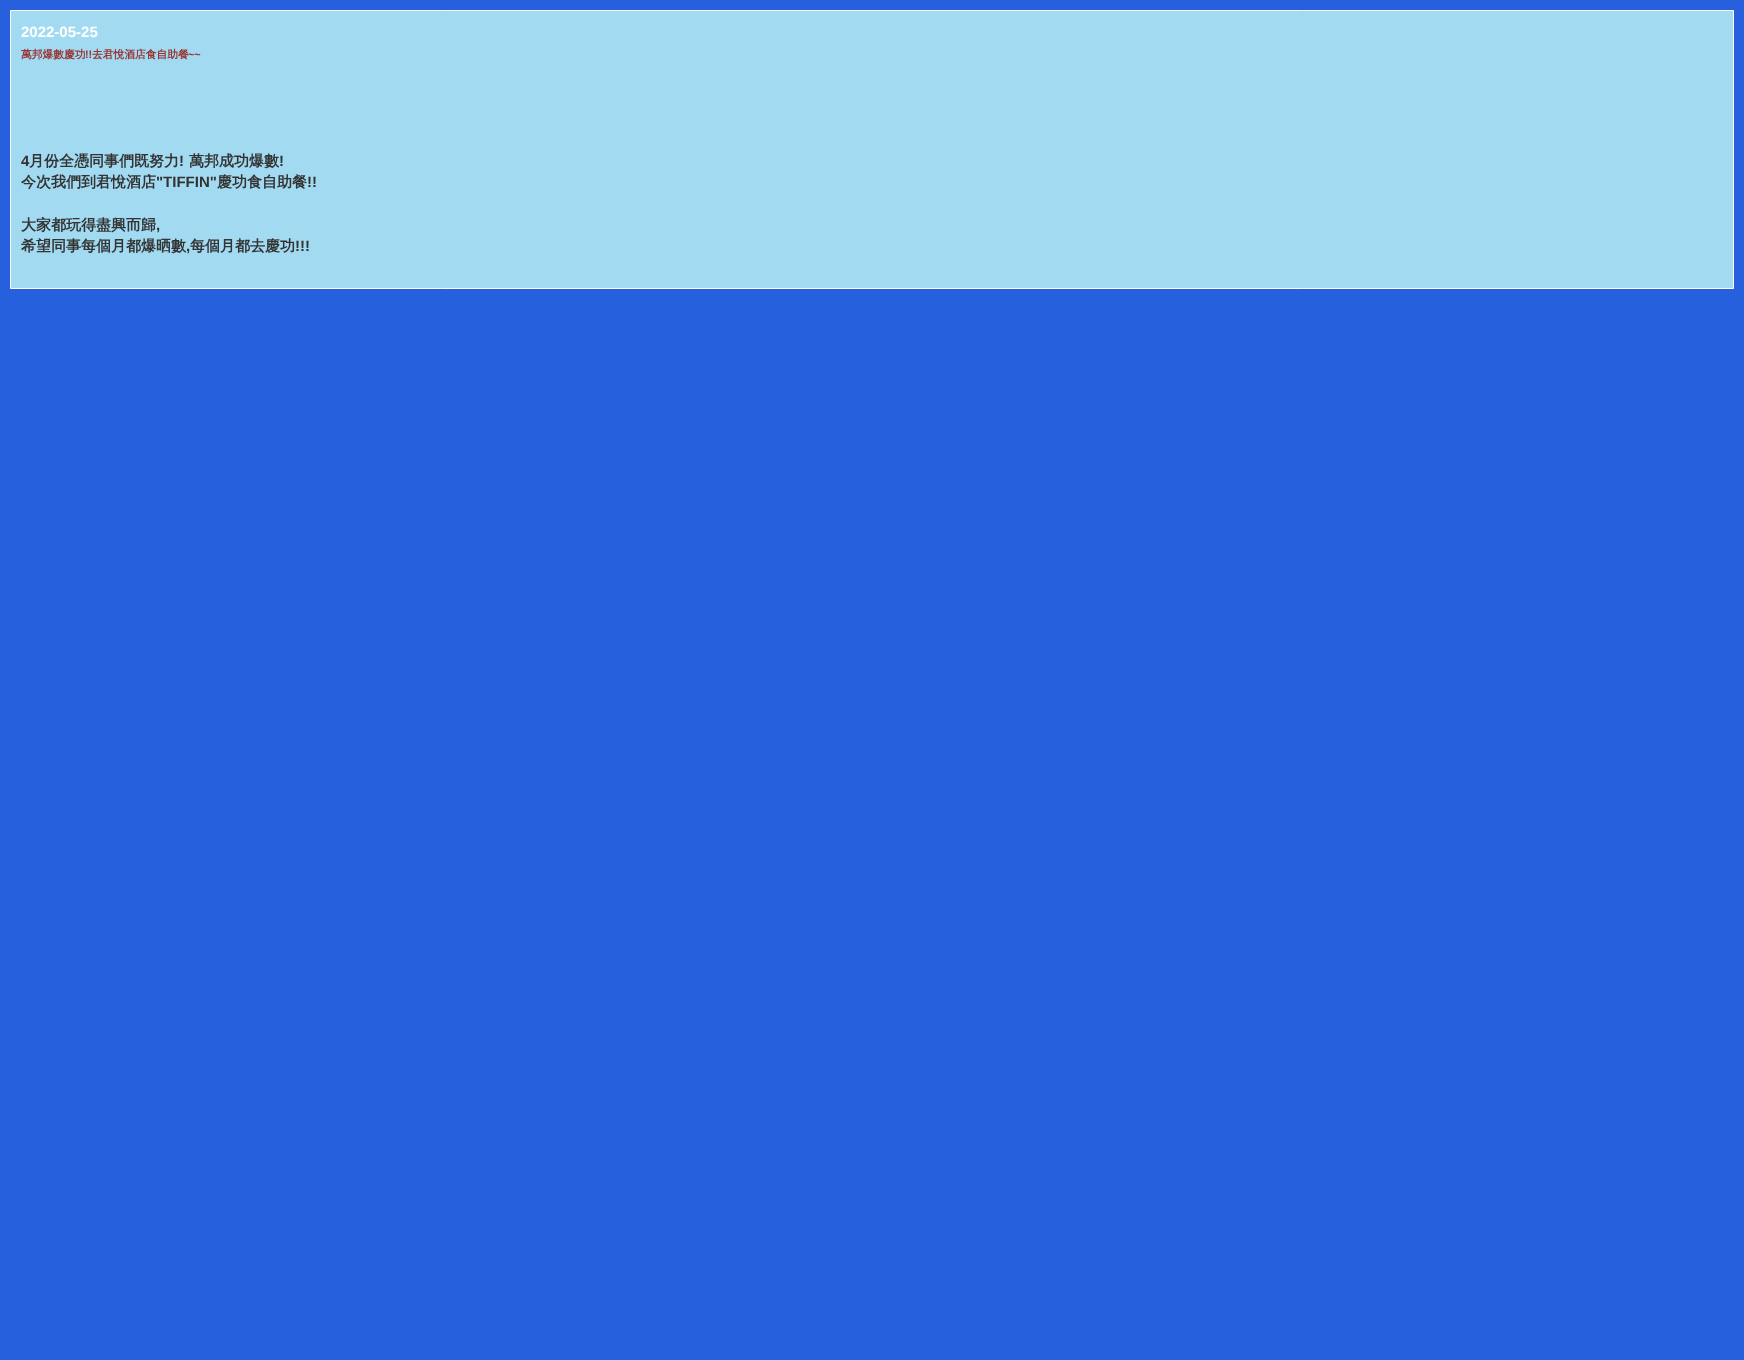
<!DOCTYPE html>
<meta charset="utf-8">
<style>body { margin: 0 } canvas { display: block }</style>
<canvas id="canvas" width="1744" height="1360"></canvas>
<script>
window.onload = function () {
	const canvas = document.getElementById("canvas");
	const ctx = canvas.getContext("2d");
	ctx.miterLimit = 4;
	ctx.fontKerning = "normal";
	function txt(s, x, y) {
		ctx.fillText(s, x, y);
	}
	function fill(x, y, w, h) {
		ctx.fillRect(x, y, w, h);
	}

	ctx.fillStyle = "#2660DD";
	fill(0, 0, 1744, 1360);
	ctx.fillStyle = "#A1DAF1";
	ctx.beginPath();
	ctx.rect(10.5, 10.5, 1723, 278);
	ctx.fill();
	ctx.strokeStyle = "#FFFFFF";
	ctx.stroke();
	ctx.font = "bold 15px Liberation Sans";
	ctx.fillStyle = "#FFFFFF";
	txt("2022-05-25", 21, 37);
	ctx.font = "bold 10.75px WenQuanYi Zen Hei";
	ctx.fillStyle = "#993333";
	txt("萬邦爆數慶功", 21, 58);
	ctx.font = "bold 10.75px Liberation Sans";
	txt("!!", 85, 58);
	ctx.font = "bold 10.75px WenQuanYi Zen Hei";
	txt("去君悅酒店食自助餐", 92, 58);
	ctx.font = "bold 10.75px Liberation Sans";
	txt("~~", 188, 58);
	ctx.font = "bold 15px Liberation Sans";
	ctx.fillStyle = "#333333";
	txt("4", 21, 166);
	ctx.font = "bold 15px WenQuanYi Zen Hei";
	txt("月份全憑同事們既努力", 29, 166);
	ctx.font = "bold 15px Liberation Sans";
	txt("!", 179, 166);
	ctx.font = "bold 15px WenQuanYi Zen Hei";
	txt("萬邦成功爆數", 189, 166);
	ctx.font = "bold 15px Liberation Sans";
	txt("!", 279, 166);
	ctx.font = "bold 15px WenQuanYi Zen Hei";
	txt("今次我們到君悅酒店", 21, 187);
	ctx.font = "bold 15px Liberation Sans";
	txt("\"TIFFIN\"", 156, 187);
	ctx.font = "bold 15px WenQuanYi Zen Hei";
	txt("慶功食自助餐", 217, 187);
	ctx.font = "bold 15px Liberation Sans";
	txt("!!", 307, 187);
	ctx.font = "bold 15px WenQuanYi Zen Hei";
	txt("大家都玩得盡興而歸", 21, 230);
	ctx.font = "bold 15px Liberation Sans";
	txt(",", 156, 230);
	ctx.font = "bold 15px WenQuanYi Zen Hei";
	txt("希望同事每個月都爆晒數", 21, 251);
	ctx.font = "bold 15px Liberation Sans";
	txt(",", 186, 251);
	ctx.font = "bold 15px WenQuanYi Zen Hei";
	txt("每個月都去慶功", 190, 251);
	ctx.font = "bold 15px Liberation Sans";
	txt("!!!", 295, 251);
};
</script>
